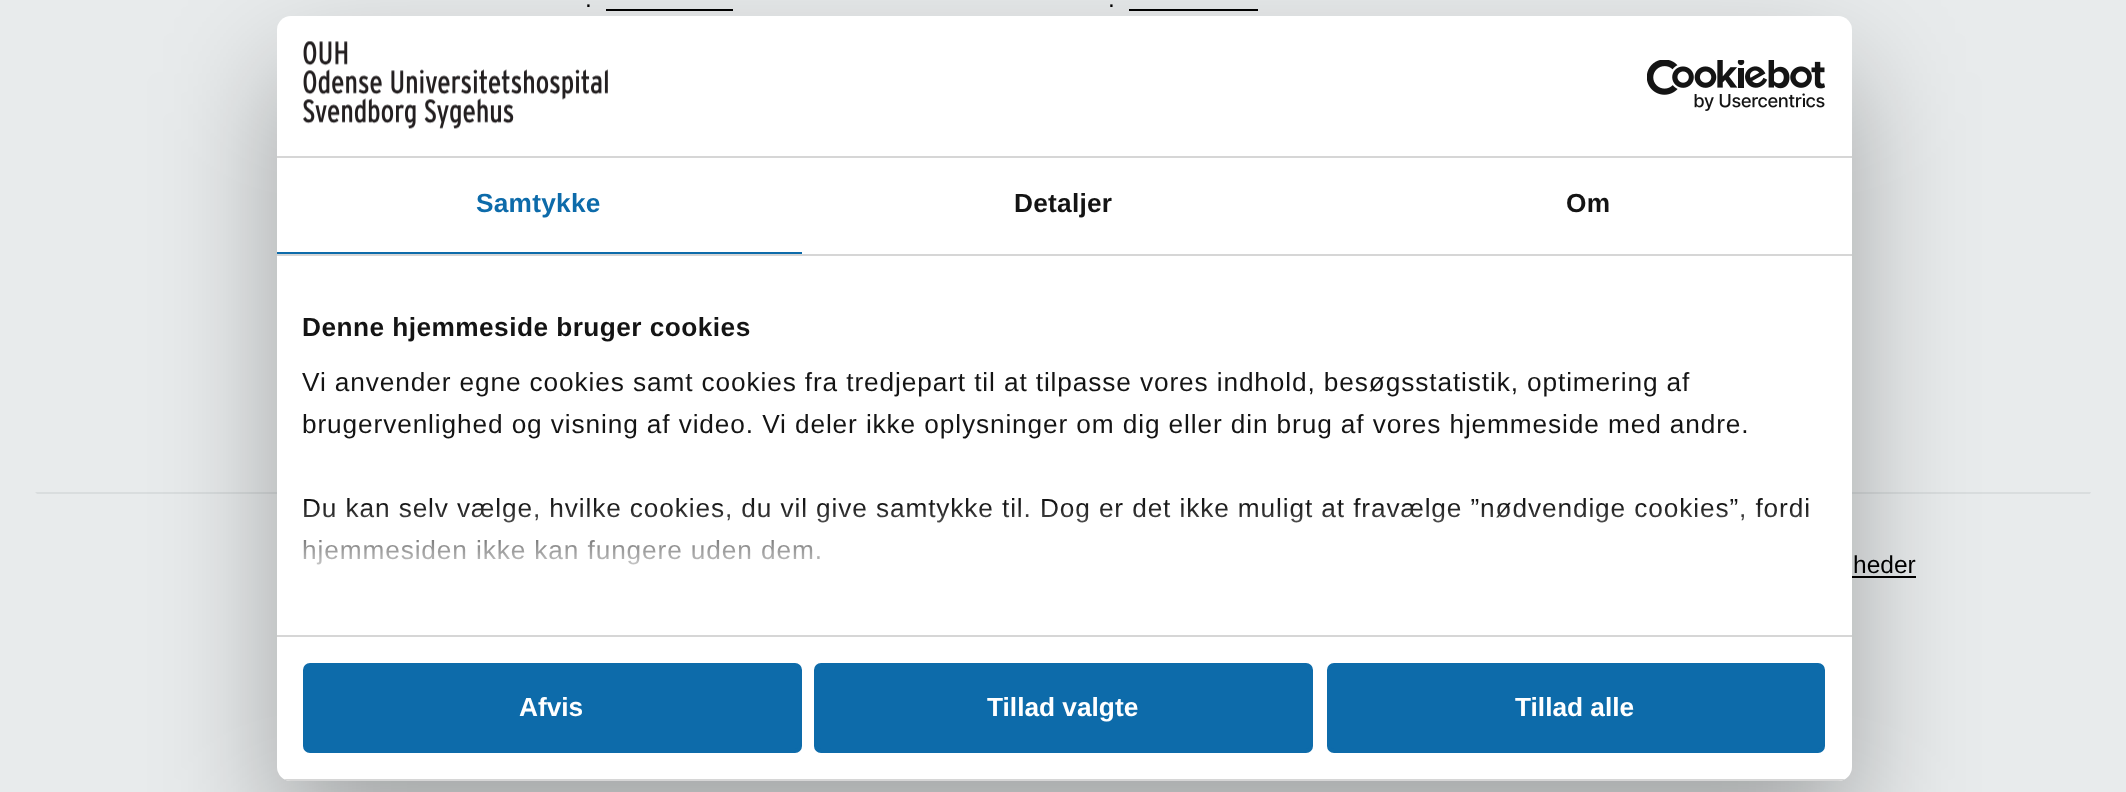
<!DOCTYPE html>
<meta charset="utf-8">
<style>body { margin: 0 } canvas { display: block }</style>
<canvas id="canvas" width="2126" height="792"></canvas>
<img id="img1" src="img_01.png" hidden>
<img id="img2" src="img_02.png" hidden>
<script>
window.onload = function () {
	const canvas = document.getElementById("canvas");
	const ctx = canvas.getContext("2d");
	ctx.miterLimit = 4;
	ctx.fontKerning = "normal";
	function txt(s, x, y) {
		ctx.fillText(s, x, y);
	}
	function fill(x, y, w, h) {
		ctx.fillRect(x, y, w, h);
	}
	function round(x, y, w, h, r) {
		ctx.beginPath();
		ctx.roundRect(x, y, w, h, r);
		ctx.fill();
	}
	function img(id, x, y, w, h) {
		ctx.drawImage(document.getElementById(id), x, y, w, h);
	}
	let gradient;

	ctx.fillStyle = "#E8EBEC";
	fill(0, 0, 2126, 792);
	ctx.fillStyle = "#000000";
	fill(606, 9, 127, 2);
	fill(1129, 9, 129, 2);
	ctx.fillStyle = "#D9DDDE";
	ctx.beginPath();
	ctx.moveTo(35, 492);
	ctx.lineTo(2091, 492);
	ctx.lineTo(2090, 494);
	ctx.lineTo(37, 494);
	ctx.closePath();
	ctx.fill();
	ctx.fillStyle = "#000000";
	fill(1852, 576, 64, 2);
	ctx.fillStyle = "rgba(0, 0, 0, 0.3)";
	ctx.filter = "blur(59.5px)";
	ctx.beginPath();
	ctx.roundRect(277, 72, 1575, 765, 14);
	ctx.fill();
	ctx.filter = "none";
	ctx.fillStyle = "#FFFFFF";
	round(277, 16, 1575, 765, 14);
	ctx.fillStyle = "#D6D6D6";
	fill(277, 156, 1575, 2);
	img("img1", 303, 41, 305, 88);
	img("img2", 1647, 60, 178, 51);
	fill(277, 254, 1575, 2);
	ctx.fillStyle = "#0D6BAA";
	fill(277, 252, 525, 2);
	ctx.fillStyle = "#D6D6D6";
	fill(277, 635, 1575, 2);
	ctx.save();
	ctx.beginPath();
	ctx.roundRect(277, 16, 1575, 765, 14);
	ctx.clip();
	fill(277, 779, 1575, 2);
	ctx.restore();
	ctx.fillStyle = "#0D6BAA";
	ctx.beginPath();
	ctx.roundRect(305, 665, 495, 86, 5);
	ctx.fill();
	ctx.strokeStyle = "#0D6BAA";
	ctx.lineWidth = 4;
	ctx.stroke();
	ctx.beginPath();
	ctx.roundRect(816, 665, 495, 86, 5);
	ctx.fill();
	ctx.stroke();
	ctx.beginPath();
	ctx.roundRect(1329, 665, 494, 86, 5);
	ctx.fill();
	ctx.stroke();
	ctx.font = "24.5px Liberation Sans";
	ctx.fillStyle = "#000000";
	txt(".", 585, 7);
	txt(".", 1108, 7);
	txt("heder", 1853, 573);
	ctx.letterSpacing = "0.25px";
	ctx.font = "bold 26.25px Liberation Sans";
	ctx.fillStyle = "#0D6BAA";
	txt("Samtykke", 476, 212);
	ctx.fillStyle = "#141414";
	txt("Detaljer", 1014, 212);
	txt("Om", 1566, 212);
	ctx.letterSpacing = "0.45px";
	txt("Denne hjemmeside bruger cookies", 302, 336);
	ctx.letterSpacing = "0.88px";
	ctx.font = "26.25px Liberation Sans";
	txt("Vi anvender egne cookies samt cookies fra tredjepart til at tilpasse vores indhold, besøgsstatistik, optimering af", 302, 391);
	txt("brugervenlighed og visning af video. Vi deler ikke oplysninger om dig eller din brug af vores hjemmeside med andre.", 302, 433);
	txt("Du kan selv vælge, hvilke cookies, du vil give samtykke til. Dog er det ikke muligt at fravælge ”nødvendige cookies”, fordi", 302, 517);
	txt("hjemmesiden ikke kan fungere uden dem.", 302, 559);
	gradient = ctx.createLinearGradient(1053, 634, 1053, 503);
	gradient.addColorStop(0, "#FFFFFF");
	gradient.addColorStop(0.5, "rgba(255, 255, 255, 0.8)");
	gradient.addColorStop(1, "rgba(255, 255, 255, 0)");
	ctx.fillStyle = gradient;
	fill(303, 505, 1505, 60);
	ctx.letterSpacing = "0px";
	ctx.font = "bold 26.25px Liberation Sans";
	ctx.fillStyle = "#FFFFFF";
	txt("Afvis", 519, 716);
	txt("Tillad valgte", 987, 716);
	txt("Tillad alle", 1515, 716);
};
</script>
